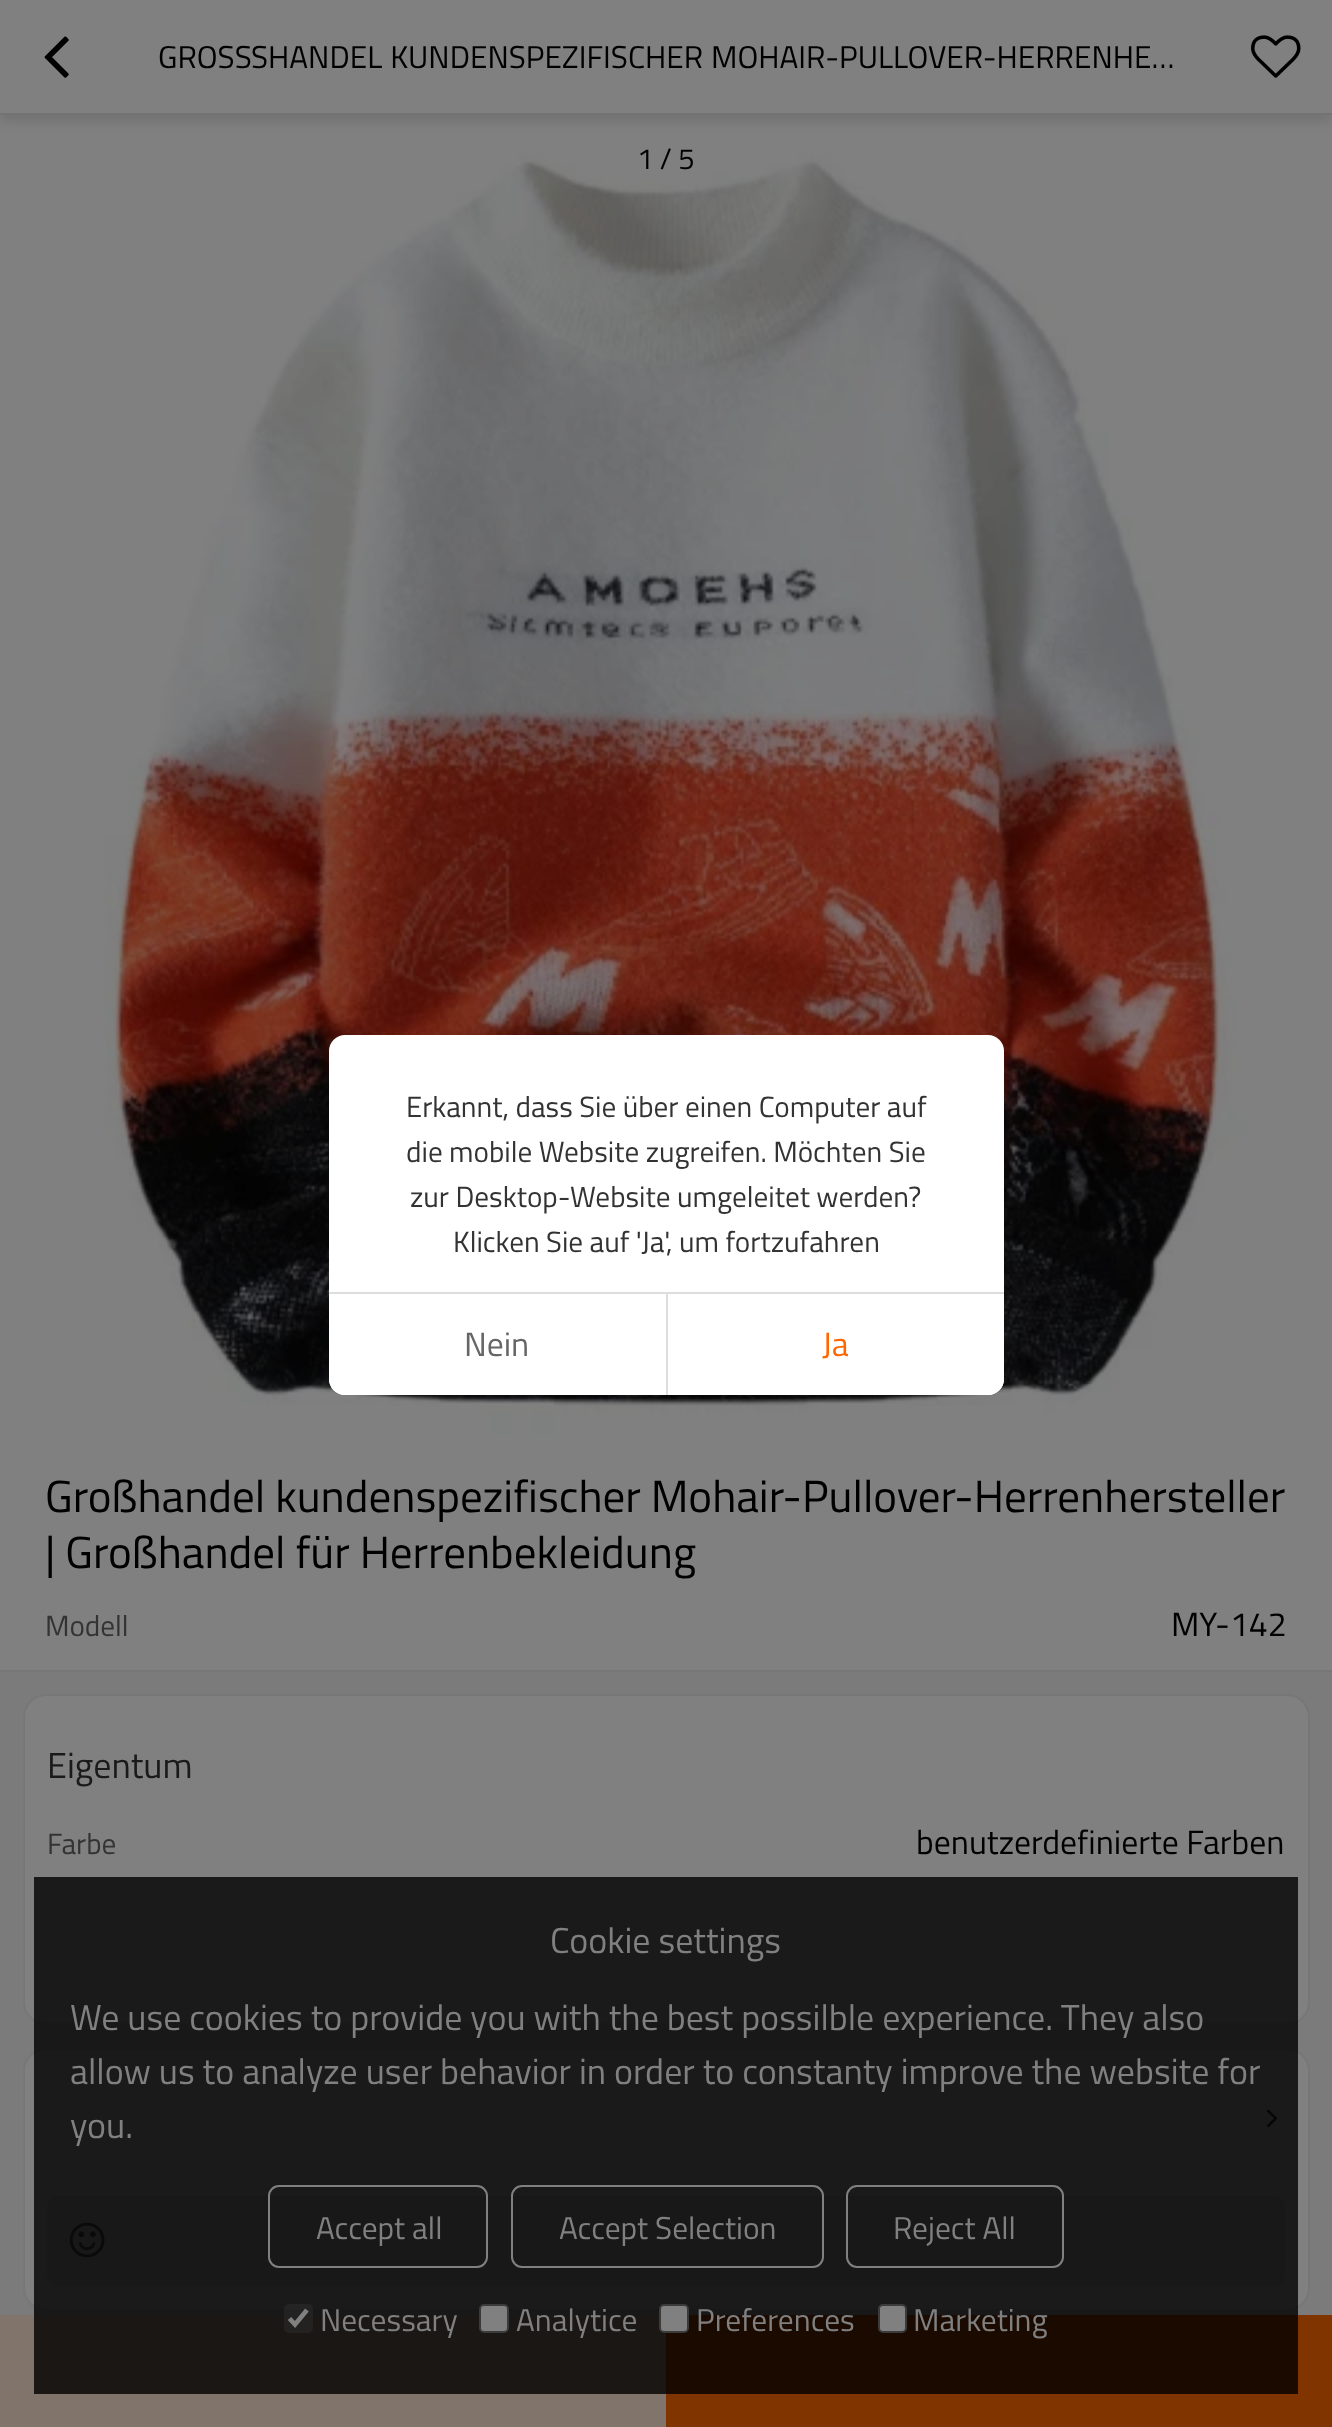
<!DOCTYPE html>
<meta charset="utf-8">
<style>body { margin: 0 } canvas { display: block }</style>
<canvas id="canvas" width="1332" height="2427"></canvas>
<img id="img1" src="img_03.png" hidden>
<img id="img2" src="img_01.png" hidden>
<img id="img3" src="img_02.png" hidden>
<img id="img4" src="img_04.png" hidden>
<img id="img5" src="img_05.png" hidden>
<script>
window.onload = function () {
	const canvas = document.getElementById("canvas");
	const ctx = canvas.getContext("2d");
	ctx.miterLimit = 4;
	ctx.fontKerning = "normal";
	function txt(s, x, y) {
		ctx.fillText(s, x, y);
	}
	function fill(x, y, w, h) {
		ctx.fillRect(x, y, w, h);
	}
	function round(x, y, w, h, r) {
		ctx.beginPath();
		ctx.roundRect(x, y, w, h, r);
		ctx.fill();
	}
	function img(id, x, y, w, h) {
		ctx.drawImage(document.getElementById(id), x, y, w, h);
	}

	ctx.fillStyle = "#7B7B7B";
	fill(0, 0, 1332, 2427);
	img("img1", 0, 115, 1332, 1330);
	ctx.fillStyle = "rgba(0, 0, 0, 0.1)";
	ctx.filter = "blur(5.5px)";
	ctx.beginPath();
	ctx.rect(0, 7, 1332, 115);
	ctx.fill();
	ctx.filter = "none";
	ctx.fillStyle = "#808080";
	fill(0, 0, 1332, 113);
	ctx.fillStyle = "#737373";
	fill(0, 113, 1332, 2);
	img("img2", 44, 36, 25, 42);
	img("img3", 1251, 35, 50, 43);
	ctx.fillStyle = "#808080";
	fill(0, 1445, 1332, 225);
	ctx.fillStyle = "#777777";
	fill(0, 1670, 1332, 2);
	ctx.fillStyle = "#808080";
	ctx.beginPath();
	ctx.roundRect(24, 1695, 1285, 329, 22);
	ctx.fill();
	ctx.strokeStyle = "#777777";
	ctx.lineWidth = 2;
	ctx.stroke();
	ctx.beginPath();
	ctx.roundRect(24, 2049, 1285, 261, 22);
	ctx.fill();
	ctx.stroke();
	img("img4", 1267, 2109, 11, 19);
	ctx.fillStyle = "#7B7B7B";
	round(47, 2196, 1238, 90, 11);
	img("img5", 69, 2222, 36, 36);
	ctx.fillStyle = "#80746B";
	fill(0, 2315, 666, 112);
	ctx.fillStyle = "#803400";
	fill(666, 2315, 666, 112);
	ctx.fillStyle = "#FFFFFF";
	round(329, 1035, 675, 360, 16);
	ctx.fillStyle = "#DDDDDD";
	fill(329, 1292, 675, 2);
	ctx.fillStyle = "#FFFFFF";
	ctx.beginPath();
	ctx.roundRect(329, 1294, 337, 101, [0, 0, 0, 16]);
	ctx.fill();
	ctx.beginPath();
	ctx.roundRect(666, 1294, 338, 101, [0, 0, 16, 0]);
	ctx.fill();
	ctx.fillStyle = "#DDDDDD";
	fill(666, 1294, 2, 101);
	ctx.fillStyle = "rgba(0, 0, 0, 0.8)";
	fill(34, 1877, 1264, 517);
	ctx.beginPath();
	ctx.roundRect(269, 2186, 218, 81, 10);
	ctx.strokeStyle = "#808080";
	ctx.stroke();
	ctx.beginPath();
	ctx.roundRect(512, 2186, 311, 81, 10);
	ctx.stroke();
	ctx.beginPath();
	ctx.roundRect(847, 2186, 216, 81, 10);
	ctx.stroke();
	ctx.fillStyle = "rgba(59, 59, 59, 0.3)";
	round(284, 2304, 29, 29, 5);
	ctx.beginPath();
	ctx.moveTo(289.5, 2318.5);
	ctx.lineTo(295, 2324.5);
	ctx.lineTo(307, 2310);
	ctx.lineWidth = 4.7;
	ctx.stroke();
	ctx.fillStyle = "#808080";
	ctx.beginPath();
	ctx.roundRect(480, 2305, 28, 27, 4);
	ctx.fill();
	ctx.strokeStyle = "#3B3B3B";
	ctx.lineWidth = 2;
	ctx.stroke();
	ctx.beginPath();
	ctx.roundRect(660, 2305, 28, 27, 4);
	ctx.fill();
	ctx.stroke();
	ctx.beginPath();
	ctx.roundRect(879, 2305, 27, 27, 4);
	ctx.fill();
	ctx.stroke();
	ctx.font = "31.5px Titillium Web";
	ctx.fillStyle = "#000000";
	txt("GROSS", 158, 68);
	ctx.wordSpacing = "1px";
	txt("SHANDEL KUNDENSPEZIFISCHER MOHAIR-PULLOVER-HERRENHE…", 251, 68);
	ctx.wordSpacing = "0px";
	ctx.font = "29.25px Titillium Web";
	txt("1 / 5", 637, 169);
	ctx.font = "45px Titillium Web";
	txt("Großhandel kundenspezifischer Mohair-Pullover-Herrenhersteller", 45, 1512);
	txt("| Großhandel für Herrenbekleidung", 45, 1568);
	ctx.font = "29.25px Titillium Web";
	ctx.fillStyle = "#333333";
	txt("Modell", 45, 1636);
	ctx.font = "33.75px Titillium Web";
	ctx.fillStyle = "#000000";
	txt("MY-142", 1171, 1636);
	ctx.font = "36px Titillium Web";
	ctx.fillStyle = "#1A1A1A";
	txt("Eigentum", 47, 1778);
	ctx.font = "29.25px Titillium Web";
	ctx.fillStyle = "#333333";
	txt("Farbe", 47, 1854);
	ctx.font = "33.75px Titillium Web";
	ctx.fillStyle = "#000000";
	txt("benutzerdefinierte Farben", 916, 1854);
	ctx.font = "29.25px Titillium Web";
	ctx.fillStyle = "#333333";
	txt("Erkannt, dass Sie über einen Computer auf", 406, 1117);
	txt("die mobile Website zugreifen. Möchten Sie", 406, 1162);
	txt("zur Desktop-Website umgeleitet werden?", 410, 1207);
	txt("Klicken Sie auf 'Ja', um fortzufahren", 453, 1252);
	ctx.font = "33.75px Titillium Web";
	ctx.fillStyle = "#666666";
	txt("Nein", 464, 1356);
	ctx.fillStyle = "#FF6700";
	txt("Ja", 822, 1356);
	ctx.font = "36px Titillium Web";
	ctx.fillStyle = "#808080";
	txt("Cookie settings", 550, 1953);
	txt("We use cookies to provide you with the best possilble experience. They also", 70, 2030);
	txt("allow us to analyze user behavior in order to constanty improve the website for", 70, 2084);
	txt("you.", 70, 2138);
	ctx.font = "31.5px Titillium Web";
	txt("Accept all", 316, 2239);
	txt("Accept Selection", 559, 2239);
	txt("Reject All", 893, 2239);
	txt("Necessary", 320, 2331);
	txt("Analytice", 516, 2331);
	txt("Preferences", 696, 2331);
	txt("Marketing", 913, 2331);
};
</script>
